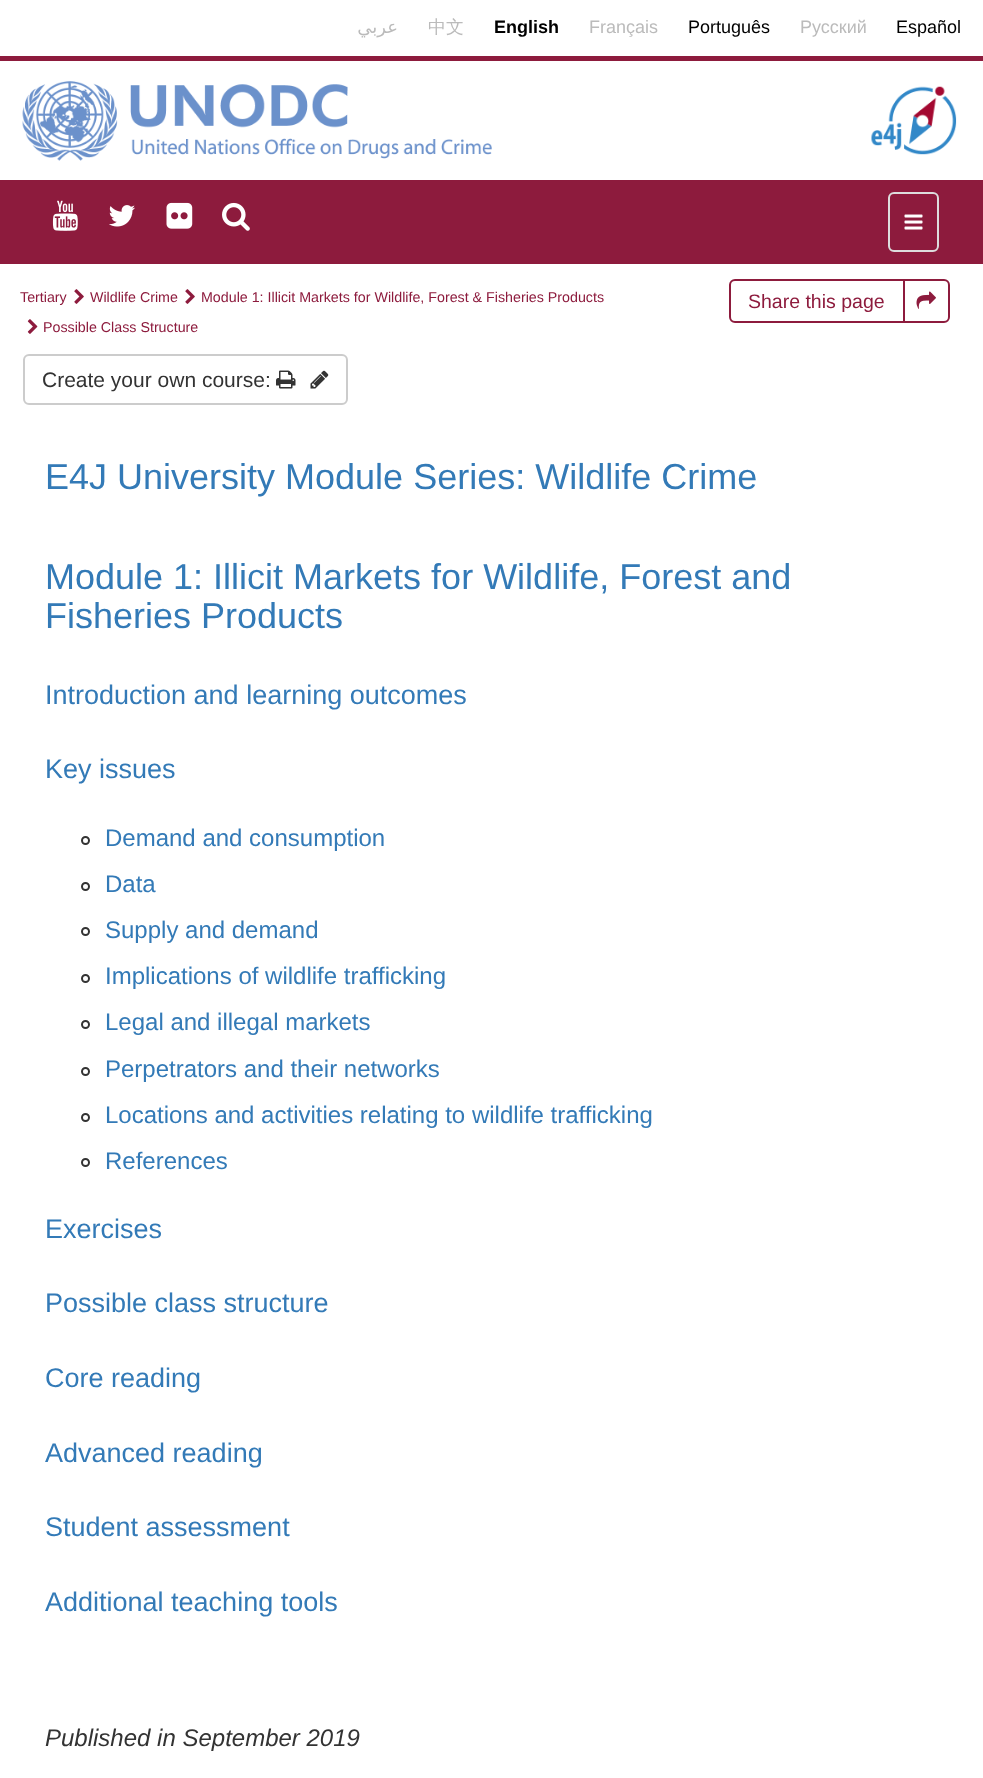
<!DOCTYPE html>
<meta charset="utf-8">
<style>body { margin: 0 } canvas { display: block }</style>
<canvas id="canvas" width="983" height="1778"></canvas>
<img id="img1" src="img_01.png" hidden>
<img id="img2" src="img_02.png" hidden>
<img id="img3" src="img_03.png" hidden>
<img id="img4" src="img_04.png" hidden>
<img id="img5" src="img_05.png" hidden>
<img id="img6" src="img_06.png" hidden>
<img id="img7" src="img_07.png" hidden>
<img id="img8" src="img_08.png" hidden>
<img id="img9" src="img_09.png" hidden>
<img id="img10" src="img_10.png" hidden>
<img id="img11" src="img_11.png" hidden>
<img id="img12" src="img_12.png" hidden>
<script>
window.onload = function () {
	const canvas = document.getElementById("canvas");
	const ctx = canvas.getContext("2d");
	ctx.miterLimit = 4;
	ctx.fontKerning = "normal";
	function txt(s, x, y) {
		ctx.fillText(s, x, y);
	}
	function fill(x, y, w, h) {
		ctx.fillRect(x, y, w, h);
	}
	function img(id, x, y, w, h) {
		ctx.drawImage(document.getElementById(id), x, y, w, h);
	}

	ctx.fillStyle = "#FFFFFF";
	fill(0, 0, 983, 1778);
	ctx.fillStyle = "#8D1B3D";
	fill(0, 56, 983, 5);
	img("img1", 22, 81, 470, 80);
	img("img2", 871, 86, 86, 69);
	fill(0, 180, 983, 84);
	img("img3", 52, 200, 26, 31);
	img("img4", 109, 205, 26, 22);
	img("img5", 166, 202, 27, 27);
	img("img6", 222, 202, 28, 29);
	ctx.beginPath();
	ctx.roundRect(889, 193, 49, 58, 5);
	ctx.strokeStyle = "#DDDDDD";
	ctx.lineWidth = 2;
	ctx.stroke();
	img("img7", 904, 214, 19, 16);
	img("img8", 74, 289, 10, 15);
	img("img8", 185, 289, 10, 15);
	img("img9", 27, 319, 11, 15);
	ctx.beginPath();
	ctx.roundRect(730, 280, 174, 42, [5, 0, 0, 5]);
	ctx.strokeStyle = "#8D1B3D";
	ctx.stroke();
	ctx.fillStyle = "#FFFFFF";
	ctx.beginPath();
	ctx.roundRect(904, 280, 45, 42, [0, 5, 5, 0]);
	ctx.fill();
	ctx.stroke();
	img("img10", 916, 291, 20, 18);
	ctx.beginPath();
	ctx.roundRect(24, 355, 323, 49, 5);
	ctx.strokeStyle = "#CCCCCC";
	ctx.stroke();
	img("img11", 276, 370, 20, 19);
	img("img12", 310, 370, 19, 19);
	ctx.beginPath();
	ctx.arc(85.5, 840.5, 3.5, 0, Math.PI * 2);
	ctx.strokeStyle = "#333333";
	ctx.stroke();
	ctx.beginPath();
	ctx.arc(85.5, 886.5, 3.5, 0, Math.PI * 2);
	ctx.stroke();
	ctx.beginPath();
	ctx.arc(85.5, 931.5, 3.5, 0, Math.PI * 2);
	ctx.stroke();
	ctx.beginPath();
	ctx.arc(85.5, 978.5, 3.5, 0, Math.PI * 2);
	ctx.stroke();
	ctx.beginPath();
	ctx.arc(85.5, 1024.5, 3.5, 0, Math.PI * 2);
	ctx.stroke();
	ctx.beginPath();
	ctx.arc(85.5, 1071.5, 3.5, 0, Math.PI * 2);
	ctx.stroke();
	ctx.beginPath();
	ctx.arc(85.5, 1117.5, 3.5, 0, Math.PI * 2);
	ctx.stroke();
	ctx.beginPath();
	ctx.arc(85.5, 1162.5, 3.5, 0, Math.PI * 2);
	ctx.stroke();
	ctx.direction = "rtl";
	ctx.font = "18px DejaVu Sans";
	ctx.fillStyle = "#BBBBBB";
	txt("عربي", 398, 33);
	ctx.direction = "ltr";
	ctx.font = "500 18px WenQuanYi Zen Hei";
	txt("中文", 428, 33);
	ctx.font = "bold 18px Liberation Sans";
	ctx.fillStyle = "#000000";
	txt("English", 494, 33);
	ctx.font = "18px Liberation Sans";
	ctx.fillStyle = "#BBBBBB";
	txt("Français", 589, 33);
	ctx.fillStyle = "#000000";
	txt("Português", 688, 33);
	ctx.fillStyle = "#BBBBBB";
	txt("Русский", 800, 33);
	ctx.fillStyle = "#000000";
	txt("Español", 896, 33);
	ctx.font = "14.25px Liberation Sans";
	ctx.fillStyle = "#8D1B3D";
	txt("Tertiary", 20, 302);
	txt("Wildlife Crime", 90, 302);
	txt("Module 1: Illicit Markets for Wildlife, Forest & Fisheries Products", 201, 302);
	txt("Possible Class Structure", 43, 332);
	ctx.font = "19.5px Liberation Sans";
	txt("Share this page", 748, 308);
	ctx.font = "21px Liberation Sans";
	ctx.fillStyle = "#333333";
	txt("Create your own course:", 42, 387);
	ctx.font = "36px Liberation Sans";
	ctx.fillStyle = "#337AB7";
	txt("E4J University Module Series: Wildlife Crime", 45, 489);
	txt("Module 1: Illicit Markets for Wildlife, Forest and", 45, 589);
	txt("Fisheries Products", 45, 628);
	ctx.font = "27px Liberation Sans";
	txt("Introduction and learning outcomes", 45, 704);
	txt("Key issues", 45, 778);
	ctx.font = "24px Liberation Sans";
	txt("Demand and consumption", 105, 846);
	txt("Data", 105, 892);
	txt("Supply and demand", 105, 938);
	txt("Implications of wildlife trafficking", 105, 984);
	txt("Legal and illegal markets", 105, 1030);
	txt("Perpetrators and their networks", 105, 1077);
	txt("Locations and activities relating to wildlife trafficking", 105, 1123);
	txt("References", 105, 1169);
	ctx.font = "27px Liberation Sans";
	txt("Exercises", 45, 1238);
	txt("Possible class structure", 45, 1312);
	txt("Core reading", 45, 1387);
	txt("Advanced reading", 45, 1462);
	txt("Student assessment", 45, 1536);
	txt("Additional teaching tools", 45, 1611);
	ctx.font = "italic 24px Liberation Sans";
	ctx.fillStyle = "#333333";
	txt("Published in September 2019", 45, 1746);
};
</script>
